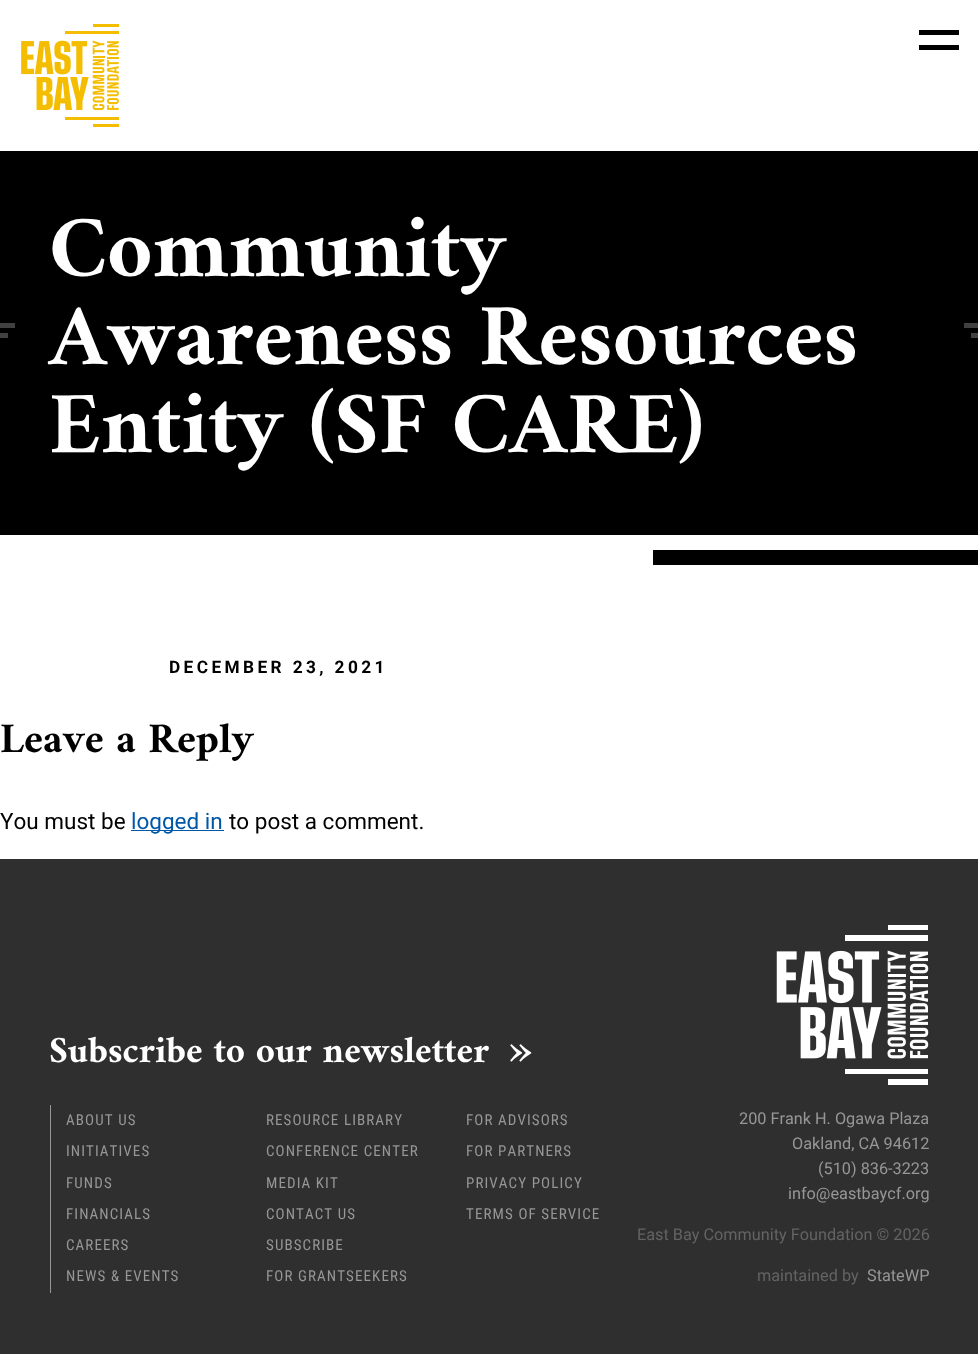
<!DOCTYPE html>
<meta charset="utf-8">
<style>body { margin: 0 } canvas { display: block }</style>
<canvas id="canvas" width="978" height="1354"></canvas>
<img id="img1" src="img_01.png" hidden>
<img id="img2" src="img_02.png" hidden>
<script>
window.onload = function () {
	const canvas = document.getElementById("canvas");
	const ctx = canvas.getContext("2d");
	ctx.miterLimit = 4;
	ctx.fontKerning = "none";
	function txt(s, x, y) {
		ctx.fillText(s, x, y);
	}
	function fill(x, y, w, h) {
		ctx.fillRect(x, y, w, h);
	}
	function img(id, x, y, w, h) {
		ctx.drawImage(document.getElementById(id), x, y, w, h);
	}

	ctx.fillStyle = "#FFFFFF";
	fill(0, 0, 978, 1354);
	img("img1", 21, 24, 98, 103);
	ctx.fillStyle = "#000000";
	fill(919, 30, 40, 5);
	fill(919, 45, 40, 5);
	fill(0, 151, 978, 384);
	ctx.fillStyle = "#404040";
	fill(964, 323, 14, 5);
	fill(0, 323, 15, 5);
	fill(971, 333, 7, 5);
	fill(0, 333, 8, 5);
	ctx.fillStyle = "#000000";
	fill(653, 550, 325, 15);
	ctx.fillStyle = "#0057A8";
	fill(131, 830, 93, 1);
	ctx.fillStyle = "#2F2F2F";
	fill(0, 859, 978, 495);
	ctx.fillStyle = "#979797";
	fill(50, 1105, 1, 188);
	img("img2", 776, 925, 153, 160);
	ctx.font = "bold 88px Amiri";
	ctx.fillStyle = "#FFFFFF";
	txt("Community", 49, 276);
	txt("Awareness Resources", 49, 364);
	txt("Entity (SF CARE)", 49, 452);
	ctx.letterSpacing = "3.4px";
	ctx.font = "bold 17.25px Roboto";
	ctx.fillStyle = "#000000";
	txt("DECEMBER 23, 2021", 169, 673);
	ctx.letterSpacing = "0px";
	ctx.font = "bold 42.5px Amiri";
	txt("Leave a Reply", 0, 752);
	ctx.font = "22.5px Roboto";
	txt("You must be", 0, 829);
	ctx.fillStyle = "#0057A8";
	txt("logged in", 131, 829);
	ctx.fillStyle = "#000000";
	txt("to post a comment.", 229, 829);
	ctx.font = "bold 37.1px Amiri";
	ctx.fillStyle = "#FFFFFF";
	txt("Subscribe to our newsletter", 49, 1062);
	ctx.font = "bold 50px Amiri";
	txt("»", 508, 1065);
	ctx.letterSpacing = "1.1px";
	ctx.font = "15px Roboto Condensed";
	ctx.fillStyle = "#979797";
	txt("ABOUT US", 66, 1125);
	txt("RESOURCE LIBRARY", 266, 1125);
	txt("FOR ADVISORS", 466, 1125);
	txt("INITIATIVES", 66, 1156);
	txt("CONFERENCE CENTER", 266, 1156);
	txt("FOR PARTNERS", 466, 1156);
	txt("FUNDS", 66, 1188);
	txt("MEDIA KIT", 266, 1188);
	txt("PRIVACY POLICY", 466, 1188);
	txt("FINANCIALS", 66, 1219);
	txt("CONTACT US", 266, 1219);
	txt("TERMS OF SERVICE", 466, 1219);
	txt("CAREERS", 66, 1250);
	txt("SUBSCRIBE", 266, 1250);
	txt("NEWS & EVENTS", 66, 1281);
	txt("FOR GRANTSEEKERS", 266, 1281);
	ctx.letterSpacing = "0px";
	ctx.font = "16.25px Roboto";
	txt("200 Frank H. Ogawa Plaza", 739, 1124);
	txt("Oakland, CA 94612", 792, 1149);
	txt("(510) 836-3223", 818, 1174);
	txt("info@eastbaycf.org", 788, 1199);
	ctx.fillStyle = "#636363";
	txt("East Bay Community Foundation © 2026", 637, 1240);
	txt("maintained by", 757, 1281);
	ctx.fillStyle = "#979797";
	txt("StateWP", 867, 1281);
};
</script>
